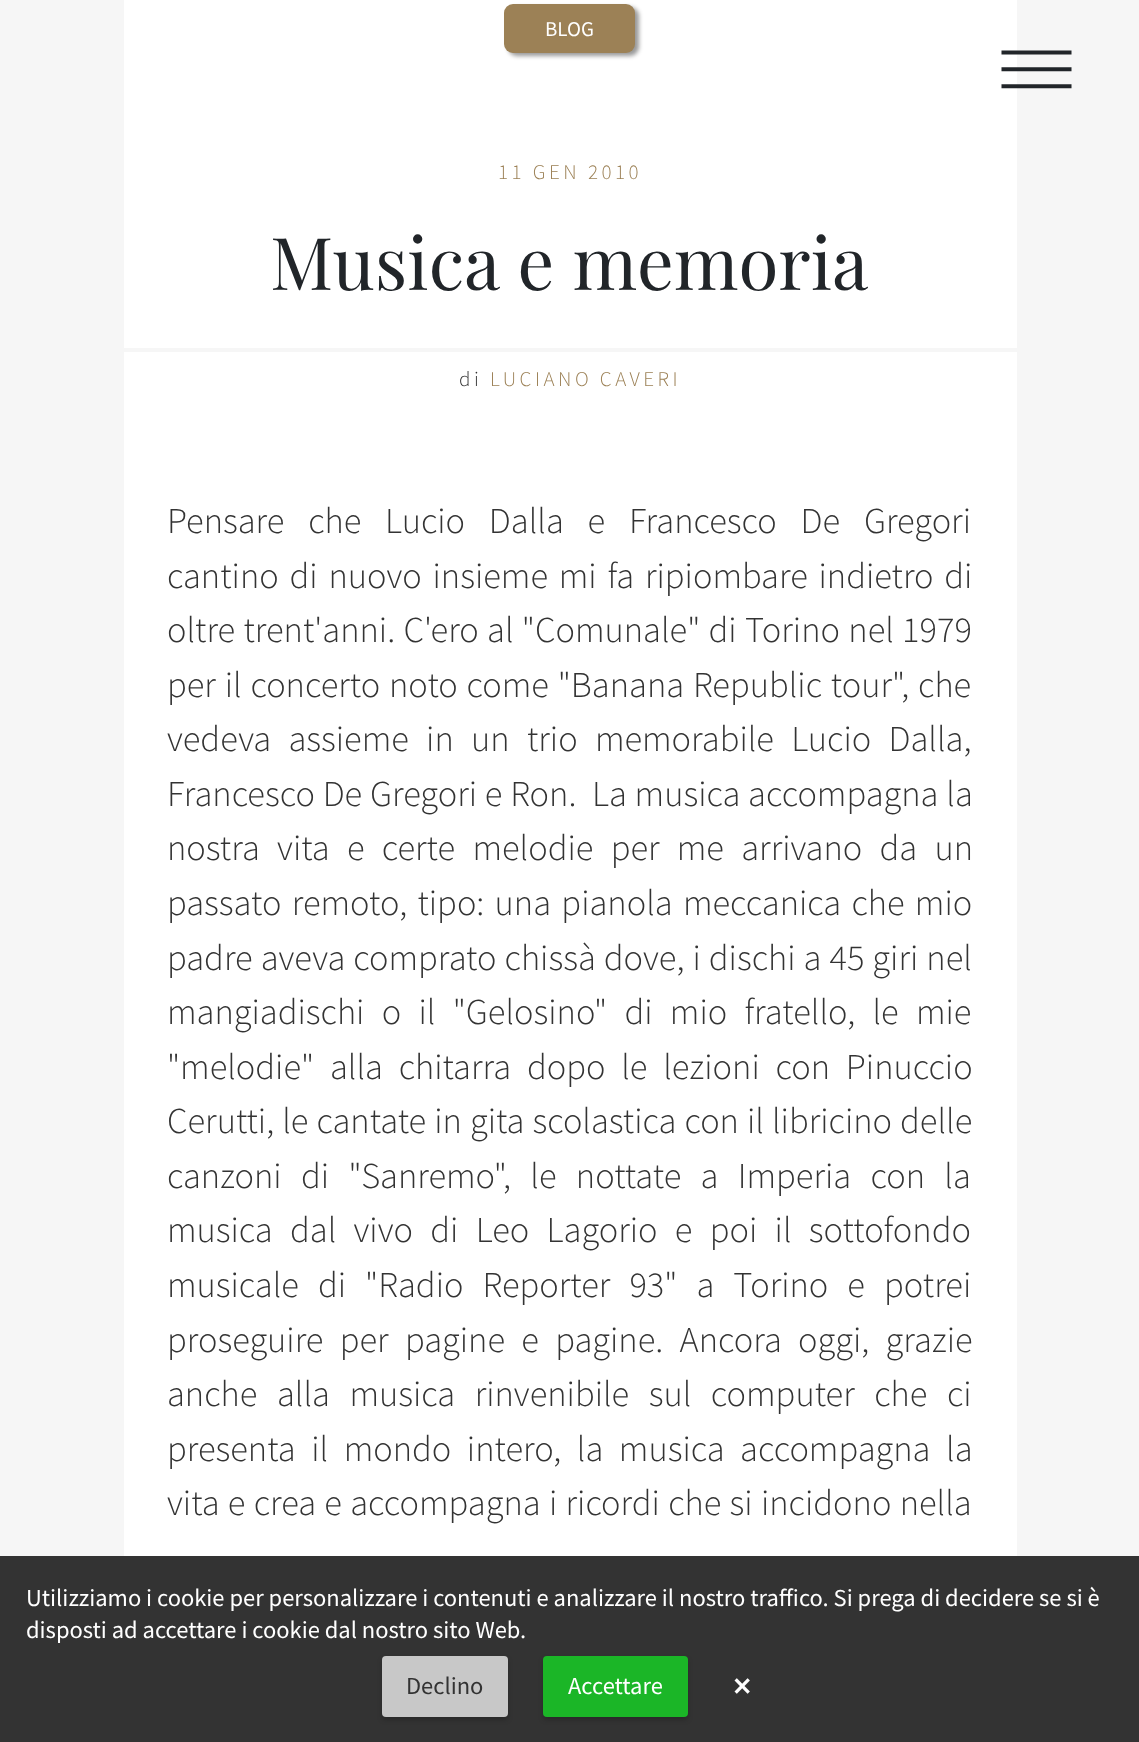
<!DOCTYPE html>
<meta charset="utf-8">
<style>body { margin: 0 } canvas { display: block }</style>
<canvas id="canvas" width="1139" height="1742"></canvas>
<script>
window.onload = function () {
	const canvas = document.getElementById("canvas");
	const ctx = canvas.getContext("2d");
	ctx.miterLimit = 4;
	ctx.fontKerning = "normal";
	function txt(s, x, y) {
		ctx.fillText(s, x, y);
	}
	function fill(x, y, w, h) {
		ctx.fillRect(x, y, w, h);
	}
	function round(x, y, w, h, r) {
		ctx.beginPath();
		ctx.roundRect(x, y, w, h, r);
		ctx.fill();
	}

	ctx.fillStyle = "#F6F6F6";
	fill(0, 0, 1139, 1742);
	ctx.fillStyle = "#FFFFFF";
	fill(124, 0, 893, 348);
	ctx.fillStyle = "rgba(0, 0, 0, 0.4)";
	ctx.filter = "blur(2px)";
	ctx.beginPath();
	ctx.roundRect(508, 7, 131, 49, 9);
	ctx.fill();
	ctx.filter = "none";
	ctx.fillStyle = "#9C8156";
	round(504, 4, 131, 49, 9);
	ctx.fillStyle = "#FFFFFF";
	fill(124, 352, 893, 1204);
	ctx.fillStyle = "#333333";
	fill(0, 1556, 1139, 186);
	ctx.fillStyle = "rgba(0, 0, 0, 0.2)";
	ctx.filter = "blur(2.5px)";
	ctx.beginPath();
	ctx.roundRect(382, 1659, 126, 61, 4);
	ctx.fill();
	ctx.filter = "none";
	ctx.fillStyle = "#C8C8C8";
	round(382, 1656, 126, 61, 4);
	ctx.fillStyle = "rgba(0, 0, 0, 0.2)";
	ctx.filter = "blur(2.5px)";
	ctx.beginPath();
	ctx.roundRect(543, 1659, 145, 61, 4);
	ctx.fill();
	ctx.filter = "none";
	ctx.fillStyle = "#1BB627";
	round(543, 1656, 145, 61, 4);
	ctx.font = "21px Source Sans Pro";
	ctx.fillStyle = "#FFFFFF";
	txt("BLOG", 545, 36);
	ctx.letterSpacing = "3.5px";
	ctx.font = "300 21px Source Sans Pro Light";
	ctx.fillStyle = "#9C8156";
	txt("11 GEN 2010", 498, 179);
	ctx.letterSpacing = "0px";
	ctx.font = "72.75px Playfair Display";
	ctx.fillStyle = "#212529";
	txt("Musica e memoria", 270, 290);
	ctx.letterSpacing = "3.5px";
	ctx.font = "300 21px Source Sans Pro Light";
	ctx.fillStyle = "#333333";
	txt("di", 459, 386);
	ctx.fillStyle = "#9C8156";
	txt("LUCIANO CAVERI", 490, 386);
	ctx.letterSpacing = "0px";
	ctx.wordSpacing = "16.5px";
	ctx.font = "300 36.4px Source Sans Pro Light";
	ctx.fillStyle = "#333333";
	txt("Pensare che Lucio Dalla e Francesco De Gregori", 167, 533);
	ctx.wordSpacing = "3.5px";
	txt("cantino di nuovo insieme mi fa ripiombare indietro di", 167, 588);
	ctx.wordSpacing = "1px";
	txt("oltre trent'anni. C'ero al \"Comunale\" di Torino nel 1979", 167, 642);
	ctx.wordSpacing = "1.5px";
	txt("per il concerto noto come \"Banana Republic tour\", che", 167, 697);
	ctx.wordSpacing = "10px";
	txt("vedeva assieme in un trio memorabile Lucio Dalla,", 167, 751);
	ctx.wordSpacing = "0.5px";
	txt("Francesco De Gregori e Ron.  La musica accompagna la", 167, 806);
	ctx.wordSpacing = "10px";
	txt("nostra vita e certe melodie per me arrivano da un", 167, 860);
	ctx.wordSpacing = "3px";
	txt("passato remoto, tipo: una pianola meccanica che mio", 167, 915);
	ctx.wordSpacing = "0.75px";
	txt("padre aveva comprato chissà dove, i dischi a 45 giri nel", 167, 970);
	ctx.wordSpacing = "10px";
	txt("mangiadischi o il \"Gelosino\" di mio fratello, le mie", 167, 1024);
	ctx.wordSpacing = "8.5px";
	txt("\"melodie\" alla chitarra dopo le lezioni con Pinuccio", 167, 1079);
	ctx.wordSpacing = "0.75px";
	txt("Cerutti, le cantate in gita scolastica con il libricino delle", 167, 1133);
	ctx.wordSpacing = "12px";
	txt("canzoni di \"Sanremo\", le nottate a Imperia con la", 167, 1188);
	ctx.wordSpacing = "10px";
	txt("musica dal vivo di Leo Lagorio e poi il sottofondo", 167, 1242);
	ctx.wordSpacing = "11.75px";
	txt("musicale di \"Radio Reporter 93\" a Torino e potrei", 167, 1297);
	ctx.wordSpacing = "9px";
	txt("proseguire per pagine e pagine. Ancora oggi, grazie", 167, 1352);
	ctx.wordSpacing = "12.25px";
	txt("anche alla musica rinvenibile sul computer che ci", 167, 1406);
	ctx.wordSpacing = "8.25px";
	txt("presenta il mondo intero, la musica accompagna la", 167, 1461);
	ctx.wordSpacing = "1px";
	txt("vita e crea e accompagna i ricordi che si incidono nella", 167, 1515);
	ctx.wordSpacing = "0px";
	ctx.font = "70px Source Sans Pro";
	ctx.fillStyle = "#212529";
	ctx.save();
	ctx.translate(1019, 44);
	ctx.rotate(90 * Math.PI / 180);
	ctx.fillText("|||", 0, 0);
	ctx.restore();
	ctx.font = "24.5px Source Sans Pro";
	ctx.fillStyle = "#FFFFFF";
	txt("Utilizziamo i cookie per personalizzare i contenuti e analizzare il nostro traffico. Si prega di decidere se si è", 26, 1606);
	txt("disposti ad accettare i cookie dal nostro sito Web.", 26, 1638);
	ctx.fillStyle = "#333333";
	txt("Declino", 406, 1694);
	ctx.fillStyle = "#FFFFFF";
	txt("Accettare", 568, 1694);
	ctx.font = "bold 35px Source Sans Pro";
	txt("×", 733, 1698);
};
</script>
